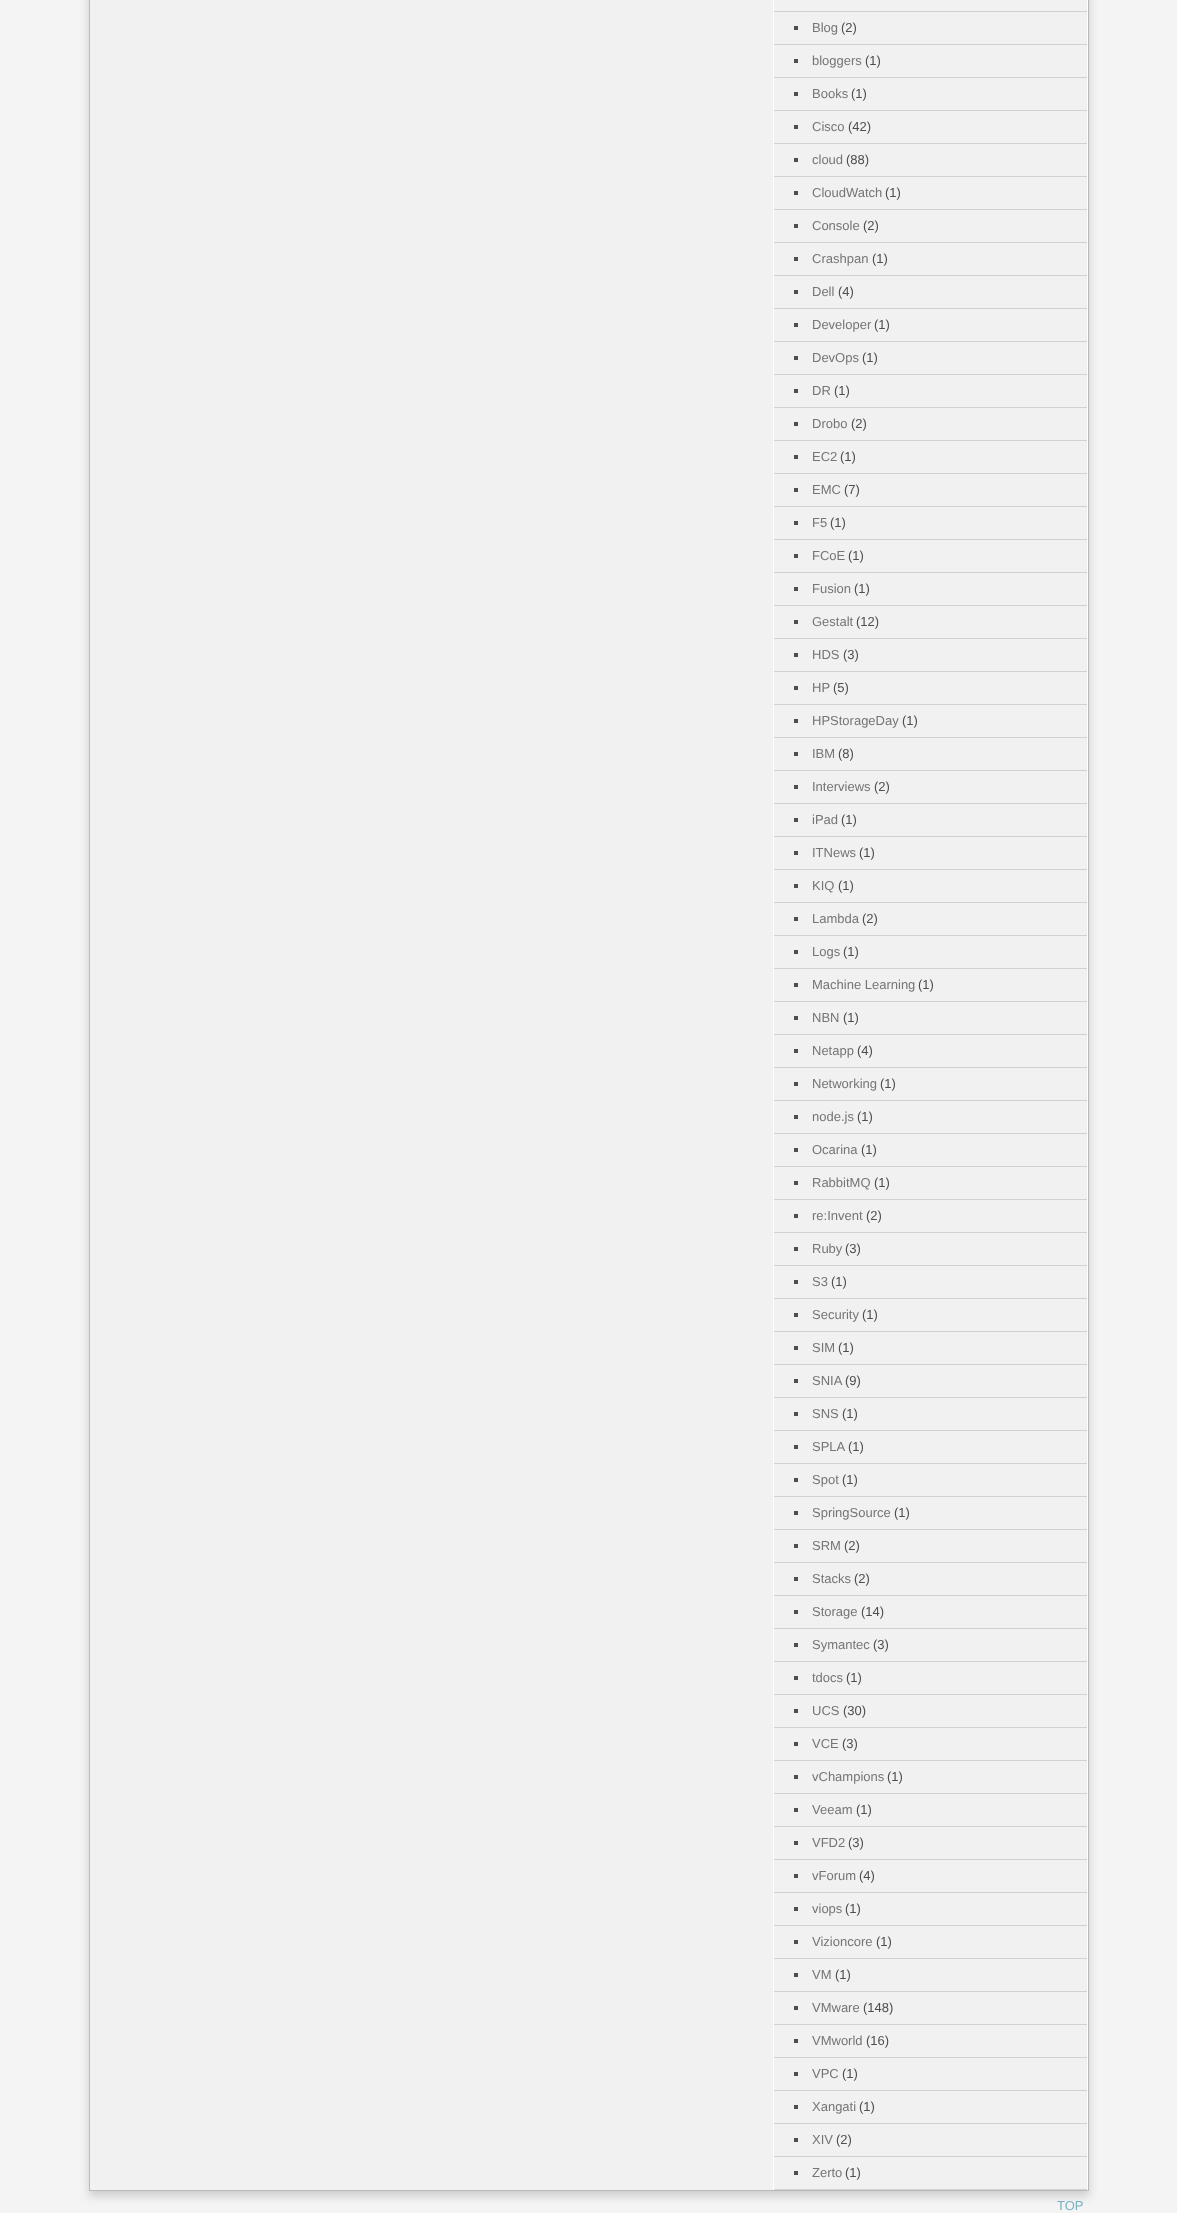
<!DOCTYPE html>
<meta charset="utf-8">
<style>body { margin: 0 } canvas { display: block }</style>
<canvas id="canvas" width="1177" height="2213"></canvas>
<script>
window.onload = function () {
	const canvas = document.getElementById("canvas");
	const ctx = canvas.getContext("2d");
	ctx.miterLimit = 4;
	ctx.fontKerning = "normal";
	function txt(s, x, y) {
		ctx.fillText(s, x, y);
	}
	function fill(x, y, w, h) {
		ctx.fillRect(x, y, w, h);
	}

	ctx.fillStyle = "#F4F4F4";
	fill(0, 0, 1177, 2213);
	ctx.fillStyle = "#CCCCCC";
	ctx.filter = "blur(5px)";
	ctx.beginPath();
	ctx.rect(89, -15, 1000, 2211);
	ctx.fill();
	ctx.filter = "none";
	ctx.fillStyle = "#F1F1F1";
	fill(90, 0, 997, 2190);
	ctx.strokeStyle = "#BBBBB5";
	ctx.strokeRect(89.5, -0.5, 999, 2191);
	ctx.fillStyle = "#FFFFFF";
	fill(1087, 0, 1, 2190);
	fill(773, 0, 1, 2190);
	ctx.fillStyle = "#D1D1D1";
	fill(774, 11, 313, 1);
	fill(774, 44, 313, 1);
	ctx.fillStyle = "#4E4E4E";
	fill(794, 26, 4, 4);
	ctx.fillStyle = "#D1D1D1";
	fill(774, 77, 313, 1);
	ctx.fillStyle = "#4E4E4E";
	fill(794, 59, 4, 4);
	ctx.fillStyle = "#D1D1D1";
	fill(774, 110, 313, 1);
	ctx.fillStyle = "#4E4E4E";
	fill(794, 92, 4, 4);
	ctx.fillStyle = "#D1D1D1";
	fill(774, 143, 313, 1);
	ctx.fillStyle = "#4E4E4E";
	fill(794, 125, 4, 4);
	ctx.fillStyle = "#D1D1D1";
	fill(774, 176, 313, 1);
	ctx.fillStyle = "#4E4E4E";
	fill(794, 158, 4, 4);
	ctx.fillStyle = "#D1D1D1";
	fill(774, 209, 313, 1);
	ctx.fillStyle = "#4E4E4E";
	fill(794, 191, 4, 4);
	ctx.fillStyle = "#D1D1D1";
	fill(774, 242, 313, 1);
	ctx.fillStyle = "#4E4E4E";
	fill(794, 224, 4, 4);
	ctx.fillStyle = "#D1D1D1";
	fill(774, 275, 313, 1);
	ctx.fillStyle = "#4E4E4E";
	fill(794, 257, 4, 4);
	ctx.fillStyle = "#D1D1D1";
	fill(774, 308, 313, 1);
	ctx.fillStyle = "#4E4E4E";
	fill(794, 290, 4, 4);
	ctx.fillStyle = "#D1D1D1";
	fill(774, 341, 313, 1);
	ctx.fillStyle = "#4E4E4E";
	fill(794, 323, 4, 4);
	ctx.fillStyle = "#D1D1D1";
	fill(774, 374, 313, 1);
	ctx.fillStyle = "#4E4E4E";
	fill(794, 356, 4, 4);
	ctx.fillStyle = "#D1D1D1";
	fill(774, 407, 313, 1);
	ctx.fillStyle = "#4E4E4E";
	fill(794, 389, 4, 4);
	ctx.fillStyle = "#D1D1D1";
	fill(774, 440, 313, 1);
	ctx.fillStyle = "#4E4E4E";
	fill(794, 422, 4, 4);
	ctx.fillStyle = "#D1D1D1";
	fill(774, 473, 313, 1);
	ctx.fillStyle = "#4E4E4E";
	fill(794, 455, 4, 4);
	ctx.fillStyle = "#D1D1D1";
	fill(774, 506, 313, 1);
	ctx.fillStyle = "#4E4E4E";
	fill(794, 488, 4, 4);
	ctx.fillStyle = "#D1D1D1";
	fill(774, 539, 313, 1);
	ctx.fillStyle = "#4E4E4E";
	fill(794, 521, 4, 4);
	ctx.fillStyle = "#D1D1D1";
	fill(774, 572, 313, 1);
	ctx.fillStyle = "#4E4E4E";
	fill(794, 554, 4, 4);
	ctx.fillStyle = "#D1D1D1";
	fill(774, 605, 313, 1);
	ctx.fillStyle = "#4E4E4E";
	fill(794, 587, 4, 4);
	ctx.fillStyle = "#D1D1D1";
	fill(774, 638, 313, 1);
	ctx.fillStyle = "#4E4E4E";
	fill(794, 620, 4, 4);
	ctx.fillStyle = "#D1D1D1";
	fill(774, 671, 313, 1);
	ctx.fillStyle = "#4E4E4E";
	fill(794, 653, 4, 4);
	ctx.fillStyle = "#D1D1D1";
	fill(774, 704, 313, 1);
	ctx.fillStyle = "#4E4E4E";
	fill(794, 686, 4, 4);
	ctx.fillStyle = "#D1D1D1";
	fill(774, 737, 313, 1);
	ctx.fillStyle = "#4E4E4E";
	fill(794, 719, 4, 4);
	ctx.fillStyle = "#D1D1D1";
	fill(774, 770, 313, 1);
	ctx.fillStyle = "#4E4E4E";
	fill(794, 752, 4, 4);
	ctx.fillStyle = "#D1D1D1";
	fill(774, 803, 313, 1);
	ctx.fillStyle = "#4E4E4E";
	fill(794, 785, 4, 4);
	ctx.fillStyle = "#D1D1D1";
	fill(774, 836, 313, 1);
	ctx.fillStyle = "#4E4E4E";
	fill(794, 818, 4, 4);
	ctx.fillStyle = "#D1D1D1";
	fill(774, 869, 313, 1);
	ctx.fillStyle = "#4E4E4E";
	fill(794, 851, 4, 4);
	ctx.fillStyle = "#D1D1D1";
	fill(774, 902, 313, 1);
	ctx.fillStyle = "#4E4E4E";
	fill(794, 884, 4, 4);
	ctx.fillStyle = "#D1D1D1";
	fill(774, 935, 313, 1);
	ctx.fillStyle = "#4E4E4E";
	fill(794, 917, 4, 4);
	ctx.fillStyle = "#D1D1D1";
	fill(774, 968, 313, 1);
	ctx.fillStyle = "#4E4E4E";
	fill(794, 950, 4, 4);
	ctx.fillStyle = "#D1D1D1";
	fill(774, 1001, 313, 1);
	ctx.fillStyle = "#4E4E4E";
	fill(794, 983, 4, 4);
	ctx.fillStyle = "#D1D1D1";
	fill(774, 1034, 313, 1);
	ctx.fillStyle = "#4E4E4E";
	fill(794, 1016, 4, 4);
	ctx.fillStyle = "#D1D1D1";
	fill(774, 1067, 313, 1);
	ctx.fillStyle = "#4E4E4E";
	fill(794, 1049, 4, 4);
	ctx.fillStyle = "#D1D1D1";
	fill(774, 1100, 313, 1);
	ctx.fillStyle = "#4E4E4E";
	fill(794, 1082, 4, 4);
	ctx.fillStyle = "#D1D1D1";
	fill(774, 1133, 313, 1);
	ctx.fillStyle = "#4E4E4E";
	fill(794, 1115, 4, 4);
	ctx.fillStyle = "#D1D1D1";
	fill(774, 1166, 313, 1);
	ctx.fillStyle = "#4E4E4E";
	fill(794, 1148, 4, 4);
	ctx.fillStyle = "#D1D1D1";
	fill(774, 1199, 313, 1);
	ctx.fillStyle = "#4E4E4E";
	fill(794, 1181, 4, 4);
	ctx.fillStyle = "#D1D1D1";
	fill(774, 1232, 313, 1);
	ctx.fillStyle = "#4E4E4E";
	fill(794, 1214, 4, 4);
	ctx.fillStyle = "#D1D1D1";
	fill(774, 1265, 313, 1);
	ctx.fillStyle = "#4E4E4E";
	fill(794, 1247, 4, 4);
	ctx.fillStyle = "#D1D1D1";
	fill(774, 1298, 313, 1);
	ctx.fillStyle = "#4E4E4E";
	fill(794, 1280, 4, 4);
	ctx.fillStyle = "#D1D1D1";
	fill(774, 1331, 313, 1);
	ctx.fillStyle = "#4E4E4E";
	fill(794, 1313, 4, 4);
	ctx.fillStyle = "#D1D1D1";
	fill(774, 1364, 313, 1);
	ctx.fillStyle = "#4E4E4E";
	fill(794, 1346, 4, 4);
	ctx.fillStyle = "#D1D1D1";
	fill(774, 1397, 313, 1);
	ctx.fillStyle = "#4E4E4E";
	fill(794, 1379, 4, 4);
	ctx.fillStyle = "#D1D1D1";
	fill(774, 1430, 313, 1);
	ctx.fillStyle = "#4E4E4E";
	fill(794, 1412, 4, 4);
	ctx.fillStyle = "#D1D1D1";
	fill(774, 1463, 313, 1);
	ctx.fillStyle = "#4E4E4E";
	fill(794, 1445, 4, 4);
	ctx.fillStyle = "#D1D1D1";
	fill(774, 1496, 313, 1);
	ctx.fillStyle = "#4E4E4E";
	fill(794, 1478, 4, 4);
	ctx.fillStyle = "#D1D1D1";
	fill(774, 1529, 313, 1);
	ctx.fillStyle = "#4E4E4E";
	fill(794, 1511, 4, 4);
	ctx.fillStyle = "#D1D1D1";
	fill(774, 1562, 313, 1);
	ctx.fillStyle = "#4E4E4E";
	fill(794, 1544, 4, 4);
	ctx.fillStyle = "#D1D1D1";
	fill(774, 1595, 313, 1);
	ctx.fillStyle = "#4E4E4E";
	fill(794, 1577, 4, 4);
	ctx.fillStyle = "#D1D1D1";
	fill(774, 1628, 313, 1);
	ctx.fillStyle = "#4E4E4E";
	fill(794, 1610, 4, 4);
	ctx.fillStyle = "#D1D1D1";
	fill(774, 1661, 313, 1);
	ctx.fillStyle = "#4E4E4E";
	fill(794, 1643, 4, 4);
	ctx.fillStyle = "#D1D1D1";
	fill(774, 1694, 313, 1);
	ctx.fillStyle = "#4E4E4E";
	fill(794, 1676, 4, 4);
	ctx.fillStyle = "#D1D1D1";
	fill(774, 1727, 313, 1);
	ctx.fillStyle = "#4E4E4E";
	fill(794, 1709, 4, 4);
	ctx.fillStyle = "#D1D1D1";
	fill(774, 1760, 313, 1);
	ctx.fillStyle = "#4E4E4E";
	fill(794, 1742, 4, 4);
	ctx.fillStyle = "#D1D1D1";
	fill(774, 1793, 313, 1);
	ctx.fillStyle = "#4E4E4E";
	fill(794, 1775, 4, 4);
	ctx.fillStyle = "#D1D1D1";
	fill(774, 1826, 313, 1);
	ctx.fillStyle = "#4E4E4E";
	fill(794, 1808, 4, 4);
	ctx.fillStyle = "#D1D1D1";
	fill(774, 1859, 313, 1);
	ctx.fillStyle = "#4E4E4E";
	fill(794, 1841, 4, 4);
	ctx.fillStyle = "#D1D1D1";
	fill(774, 1892, 313, 1);
	ctx.fillStyle = "#4E4E4E";
	fill(794, 1874, 4, 4);
	ctx.fillStyle = "#D1D1D1";
	fill(774, 1925, 313, 1);
	ctx.fillStyle = "#4E4E4E";
	fill(794, 1907, 4, 4);
	ctx.fillStyle = "#D1D1D1";
	fill(774, 1958, 313, 1);
	ctx.fillStyle = "#4E4E4E";
	fill(794, 1940, 4, 4);
	ctx.fillStyle = "#D1D1D1";
	fill(774, 1991, 313, 1);
	ctx.fillStyle = "#4E4E4E";
	fill(794, 1973, 4, 4);
	ctx.fillStyle = "#D1D1D1";
	fill(774, 2024, 313, 1);
	ctx.fillStyle = "#4E4E4E";
	fill(794, 2006, 4, 4);
	ctx.fillStyle = "#D1D1D1";
	fill(774, 2057, 313, 1);
	ctx.fillStyle = "#4E4E4E";
	fill(794, 2039, 4, 4);
	ctx.fillStyle = "#D1D1D1";
	fill(774, 2090, 313, 1);
	ctx.fillStyle = "#4E4E4E";
	fill(794, 2072, 4, 4);
	ctx.fillStyle = "#D1D1D1";
	fill(774, 2123, 313, 1);
	ctx.fillStyle = "#4E4E4E";
	fill(794, 2105, 4, 4);
	ctx.fillStyle = "#D1D1D1";
	fill(774, 2156, 313, 1);
	ctx.fillStyle = "#4E4E4E";
	fill(794, 2138, 4, 4);
	ctx.fillStyle = "#D1D1D1";
	fill(774, 2189, 313, 1);
	ctx.fillStyle = "#4E4E4E";
	fill(794, 2171, 4, 4);
	ctx.font = "13px Liberation Sans";
	ctx.fillStyle = "#767575";
	txt("Blog", 812, 32);
	ctx.fillStyle = "#4E4E4E";
	txt("(2)", 841, 32);
	ctx.fillStyle = "#767575";
	txt("bloggers", 812, 65);
	ctx.fillStyle = "#4E4E4E";
	txt("(1)", 865, 65);
	ctx.fillStyle = "#767575";
	txt("Books", 812, 98);
	ctx.fillStyle = "#4E4E4E";
	txt("(1)", 851, 98);
	ctx.fillStyle = "#767575";
	txt("Cisco", 812, 131);
	ctx.fillStyle = "#4E4E4E";
	txt("(42)", 848, 131);
	ctx.fillStyle = "#767575";
	txt("cloud", 812, 164);
	ctx.fillStyle = "#4E4E4E";
	txt("(88)", 846, 164);
	ctx.fillStyle = "#767575";
	txt("CloudWatch", 812, 197);
	ctx.fillStyle = "#4E4E4E";
	txt("(1)", 885, 197);
	ctx.fillStyle = "#767575";
	txt("Console", 812, 230);
	ctx.fillStyle = "#4E4E4E";
	txt("(2)", 863, 230);
	ctx.fillStyle = "#767575";
	txt("Crashpan", 812, 263);
	ctx.fillStyle = "#4E4E4E";
	txt("(1)", 872, 263);
	ctx.fillStyle = "#767575";
	txt("Dell", 812, 296);
	ctx.fillStyle = "#4E4E4E";
	txt("(4)", 838, 296);
	ctx.fillStyle = "#767575";
	txt("Developer", 812, 329);
	ctx.fillStyle = "#4E4E4E";
	txt("(1)", 874, 329);
	ctx.fillStyle = "#767575";
	txt("DevOps", 812, 362);
	ctx.fillStyle = "#4E4E4E";
	txt("(1)", 862, 362);
	ctx.fillStyle = "#767575";
	txt("DR", 812, 395);
	ctx.fillStyle = "#4E4E4E";
	txt("(1)", 834, 395);
	ctx.fillStyle = "#767575";
	txt("Drobo", 812, 428);
	ctx.fillStyle = "#4E4E4E";
	txt("(2)", 851, 428);
	ctx.fillStyle = "#767575";
	txt("EC2", 812, 461);
	ctx.fillStyle = "#4E4E4E";
	txt("(1)", 840, 461);
	ctx.fillStyle = "#767575";
	txt("EMC", 812, 494);
	ctx.fillStyle = "#4E4E4E";
	txt("(7)", 844, 494);
	ctx.fillStyle = "#767575";
	txt("F5", 812, 527);
	ctx.fillStyle = "#4E4E4E";
	txt("(1)", 830, 527);
	ctx.fillStyle = "#767575";
	txt("FCoE", 812, 560);
	ctx.fillStyle = "#4E4E4E";
	txt("(1)", 848, 560);
	ctx.fillStyle = "#767575";
	txt("Fusion", 812, 593);
	ctx.fillStyle = "#4E4E4E";
	txt("(1)", 854, 593);
	ctx.fillStyle = "#767575";
	txt("Gestalt", 812, 626);
	ctx.fillStyle = "#4E4E4E";
	txt("(12)", 856, 626);
	ctx.fillStyle = "#767575";
	txt("HDS", 812, 659);
	ctx.fillStyle = "#4E4E4E";
	txt("(3)", 843, 659);
	ctx.fillStyle = "#767575";
	txt("HP", 812, 692);
	ctx.fillStyle = "#4E4E4E";
	txt("(5)", 833, 692);
	ctx.fillStyle = "#767575";
	txt("HPStorageDay", 812, 725);
	ctx.fillStyle = "#4E4E4E";
	txt("(1)", 902, 725);
	ctx.fillStyle = "#767575";
	txt("IBM", 812, 758);
	ctx.fillStyle = "#4E4E4E";
	txt("(8)", 838, 758);
	ctx.fillStyle = "#767575";
	txt("Interviews", 812, 791);
	ctx.fillStyle = "#4E4E4E";
	txt("(2)", 874, 791);
	ctx.fillStyle = "#767575";
	txt("iPad", 812, 824);
	ctx.fillStyle = "#4E4E4E";
	txt("(1)", 841, 824);
	ctx.fillStyle = "#767575";
	txt("ITNews", 812, 857);
	ctx.fillStyle = "#4E4E4E";
	txt("(1)", 859, 857);
	ctx.fillStyle = "#767575";
	txt("KIQ", 812, 890);
	ctx.fillStyle = "#4E4E4E";
	txt("(1)", 838, 890);
	ctx.fillStyle = "#767575";
	txt("Lambda", 812, 923);
	ctx.fillStyle = "#4E4E4E";
	txt("(2)", 862, 923);
	ctx.fillStyle = "#767575";
	txt("Logs", 812, 956);
	ctx.fillStyle = "#4E4E4E";
	txt("(1)", 843, 956);
	ctx.fillStyle = "#767575";
	txt("Machine Learning", 812, 989);
	ctx.fillStyle = "#4E4E4E";
	txt("(1)", 918, 989);
	ctx.fillStyle = "#767575";
	txt("NBN", 812, 1022);
	ctx.fillStyle = "#4E4E4E";
	txt("(1)", 843, 1022);
	ctx.fillStyle = "#767575";
	txt("Netapp", 812, 1055);
	ctx.fillStyle = "#4E4E4E";
	txt("(4)", 857, 1055);
	ctx.fillStyle = "#767575";
	txt("Networking", 812, 1088);
	ctx.fillStyle = "#4E4E4E";
	txt("(1)", 880, 1088);
	ctx.fillStyle = "#767575";
	txt("node.js", 812, 1121);
	ctx.fillStyle = "#4E4E4E";
	txt("(1)", 857, 1121);
	ctx.fillStyle = "#767575";
	txt("Ocarina", 812, 1154);
	ctx.fillStyle = "#4E4E4E";
	txt("(1)", 861, 1154);
	ctx.fillStyle = "#767575";
	txt("RabbitMQ", 812, 1187);
	ctx.fillStyle = "#4E4E4E";
	txt("(1)", 874, 1187);
	ctx.fillStyle = "#767575";
	txt("re:Invent", 812, 1220);
	ctx.fillStyle = "#4E4E4E";
	txt("(2)", 866, 1220);
	ctx.fillStyle = "#767575";
	txt("Ruby", 812, 1253);
	ctx.fillStyle = "#4E4E4E";
	txt("(3)", 845, 1253);
	ctx.fillStyle = "#767575";
	txt("S3", 812, 1286);
	ctx.fillStyle = "#4E4E4E";
	txt("(1)", 831, 1286);
	ctx.fillStyle = "#767575";
	txt("Security", 812, 1319);
	ctx.fillStyle = "#4E4E4E";
	txt("(1)", 862, 1319);
	ctx.fillStyle = "#767575";
	txt("SIM", 812, 1352);
	ctx.fillStyle = "#4E4E4E";
	txt("(1)", 838, 1352);
	ctx.fillStyle = "#767575";
	txt("SNIA", 812, 1385);
	ctx.fillStyle = "#4E4E4E";
	txt("(9)", 845, 1385);
	ctx.fillStyle = "#767575";
	txt("SNS", 812, 1418);
	ctx.fillStyle = "#4E4E4E";
	txt("(1)", 842, 1418);
	ctx.fillStyle = "#767575";
	txt("SPLA", 812, 1451);
	ctx.fillStyle = "#4E4E4E";
	txt("(1)", 848, 1451);
	ctx.fillStyle = "#767575";
	txt("Spot", 812, 1484);
	ctx.fillStyle = "#4E4E4E";
	txt("(1)", 842, 1484);
	ctx.fillStyle = "#767575";
	txt("SpringSource", 812, 1517);
	ctx.fillStyle = "#4E4E4E";
	txt("(1)", 894, 1517);
	ctx.fillStyle = "#767575";
	txt("SRM", 812, 1550);
	ctx.fillStyle = "#4E4E4E";
	txt("(2)", 844, 1550);
	ctx.fillStyle = "#767575";
	txt("Stacks", 812, 1583);
	ctx.fillStyle = "#4E4E4E";
	txt("(2)", 854, 1583);
	ctx.fillStyle = "#767575";
	txt("Storage", 812, 1616);
	ctx.fillStyle = "#4E4E4E";
	txt("(14)", 861, 1616);
	ctx.fillStyle = "#767575";
	txt("Symantec", 812, 1649);
	ctx.fillStyle = "#4E4E4E";
	txt("(3)", 873, 1649);
	ctx.fillStyle = "#767575";
	txt("tdocs", 812, 1682);
	ctx.fillStyle = "#4E4E4E";
	txt("(1)", 846, 1682);
	ctx.fillStyle = "#767575";
	txt("UCS", 812, 1715);
	ctx.fillStyle = "#4E4E4E";
	txt("(30)", 843, 1715);
	ctx.fillStyle = "#767575";
	txt("VCE", 812, 1748);
	ctx.fillStyle = "#4E4E4E";
	txt("(3)", 842, 1748);
	ctx.fillStyle = "#767575";
	txt("vChampions", 812, 1781);
	ctx.fillStyle = "#4E4E4E";
	txt("(1)", 887, 1781);
	ctx.fillStyle = "#767575";
	txt("Veeam", 812, 1814);
	ctx.fillStyle = "#4E4E4E";
	txt("(1)", 856, 1814);
	ctx.fillStyle = "#767575";
	txt("VFD2", 812, 1847);
	ctx.fillStyle = "#4E4E4E";
	txt("(3)", 848, 1847);
	ctx.fillStyle = "#767575";
	txt("vForum", 812, 1880);
	ctx.fillStyle = "#4E4E4E";
	txt("(4)", 859, 1880);
	ctx.fillStyle = "#767575";
	txt("viops", 812, 1913);
	ctx.fillStyle = "#4E4E4E";
	txt("(1)", 845, 1913);
	ctx.fillStyle = "#767575";
	txt("Vizioncore", 812, 1946);
	ctx.fillStyle = "#4E4E4E";
	txt("(1)", 876, 1946);
	ctx.fillStyle = "#767575";
	txt("VM", 812, 1979);
	ctx.fillStyle = "#4E4E4E";
	txt("(1)", 835, 1979);
	ctx.fillStyle = "#767575";
	txt("VMware", 812, 2012);
	ctx.fillStyle = "#4E4E4E";
	txt("(148)", 863, 2012);
	ctx.fillStyle = "#767575";
	txt("VMworld", 812, 2045);
	ctx.fillStyle = "#4E4E4E";
	txt("(16)", 866, 2045);
	ctx.fillStyle = "#767575";
	txt("VPC", 812, 2078);
	ctx.fillStyle = "#4E4E4E";
	txt("(1)", 842, 2078);
	ctx.fillStyle = "#767575";
	txt("Xangati", 812, 2111);
	ctx.fillStyle = "#4E4E4E";
	txt("(1)", 859, 2111);
	ctx.fillStyle = "#767575";
	txt("XIV", 812, 2144);
	ctx.fillStyle = "#4E4E4E";
	txt("(2)", 836, 2144);
	ctx.fillStyle = "#767575";
	txt("Zerto", 812, 2177);
	ctx.fillStyle = "#4E4E4E";
	txt("(1)", 845, 2177);
	ctx.fillStyle = "#76B2C4";
	txt("TOP", 1057, 2210);
};
</script>
